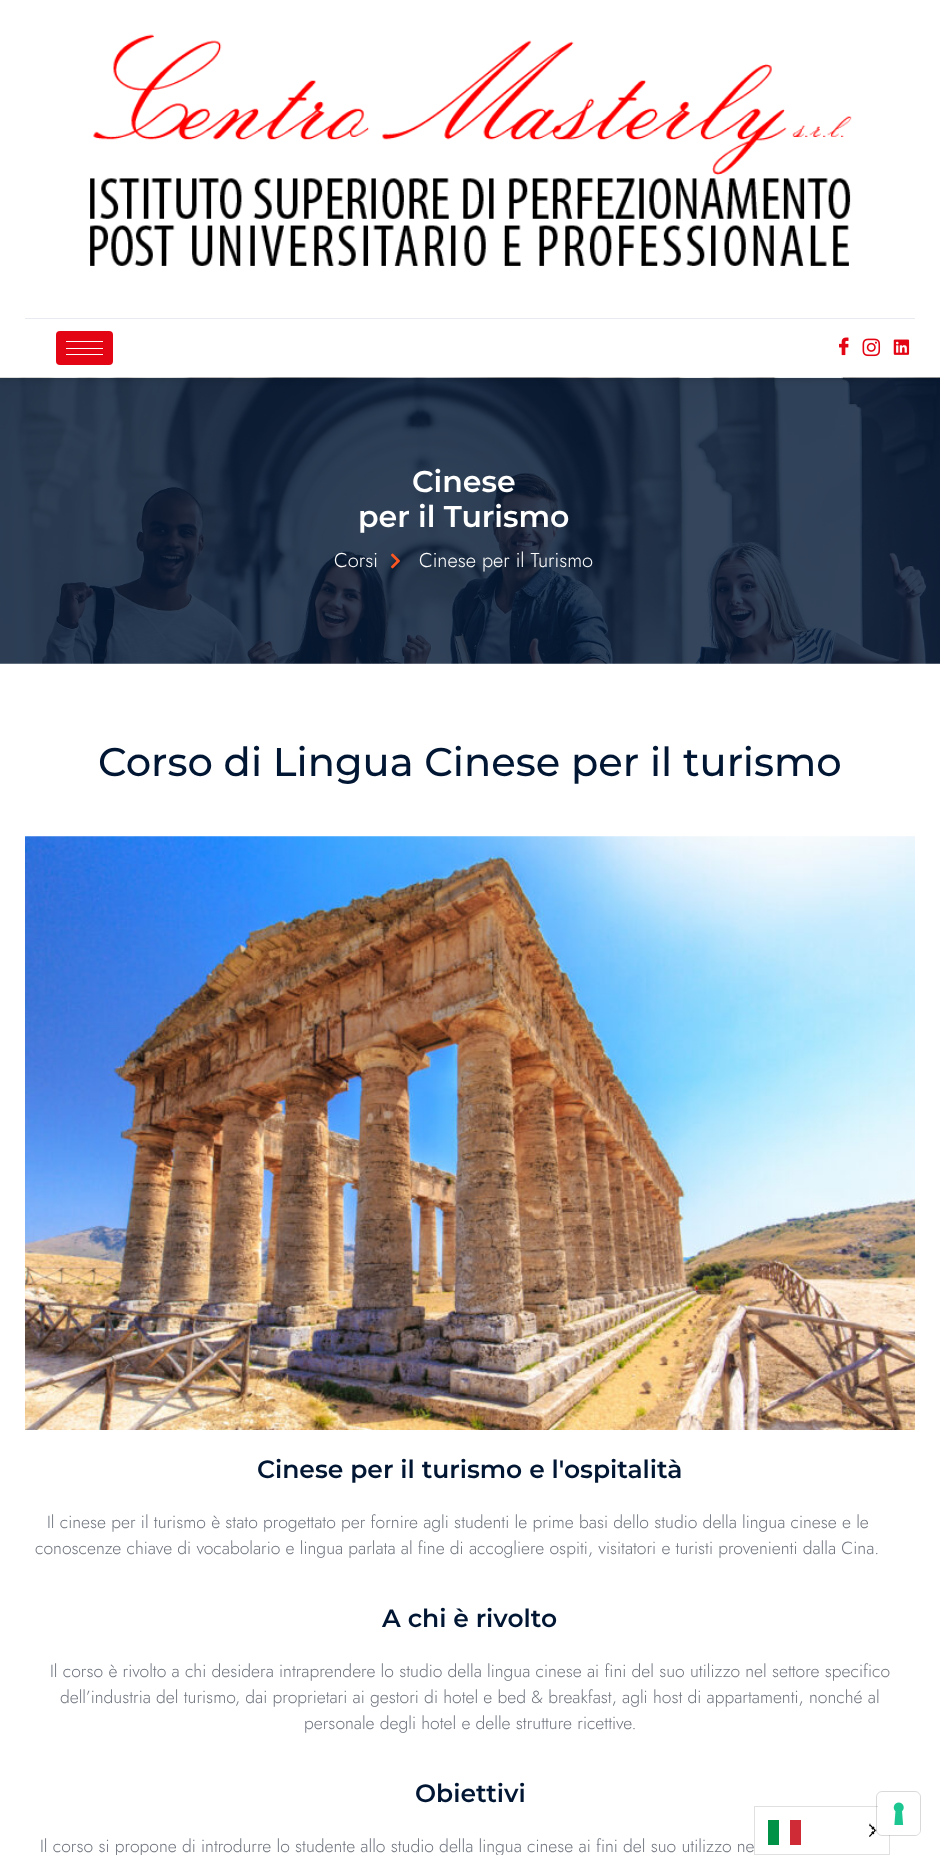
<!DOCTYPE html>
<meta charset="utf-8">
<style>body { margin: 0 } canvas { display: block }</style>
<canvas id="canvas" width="940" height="1855"></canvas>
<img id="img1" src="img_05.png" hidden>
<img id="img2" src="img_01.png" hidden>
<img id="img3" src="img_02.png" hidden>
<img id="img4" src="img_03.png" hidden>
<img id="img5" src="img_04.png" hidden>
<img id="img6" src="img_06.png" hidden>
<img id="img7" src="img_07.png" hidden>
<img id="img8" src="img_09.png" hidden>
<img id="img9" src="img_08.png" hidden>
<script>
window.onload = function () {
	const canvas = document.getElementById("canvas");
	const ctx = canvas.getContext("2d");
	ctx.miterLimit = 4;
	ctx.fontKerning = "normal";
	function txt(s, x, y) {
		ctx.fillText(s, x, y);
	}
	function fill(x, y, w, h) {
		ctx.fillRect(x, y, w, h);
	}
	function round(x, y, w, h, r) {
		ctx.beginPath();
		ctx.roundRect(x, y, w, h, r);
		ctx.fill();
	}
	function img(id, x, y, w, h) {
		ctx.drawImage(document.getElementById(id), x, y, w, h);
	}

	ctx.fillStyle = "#FFFFFF";
	fill(0, 0, 940, 1855);
	img("img1", 0, 377, 940, 287);
	ctx.save();
	ctx.beginPath();
	ctx.moveTo(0, 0);
	ctx.lineTo(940, 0);
	ctx.lineTo(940, 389);
	ctx.lineTo(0, 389);
	ctx.closePath();
	ctx.moveTo(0, 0);
	ctx.lineTo(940, 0);
	ctx.lineTo(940, 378);
	ctx.lineTo(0, 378);
	ctx.closePath();
	ctx.clip("evenodd");
	ctx.fillStyle = "rgba(0, 0, 0, 0.15)";
	ctx.filter = "blur(3px)";
	ctx.beginPath();
	ctx.rect(0, 1, 940, 378);
	ctx.fill();
	ctx.filter = "none";
	ctx.restore();
	img("img2", 90, 34, 762, 232);
	ctx.fillStyle = "#E7EBF0";
	fill(25, 318, 890, 1);
	ctx.fillStyle = "#E30513";
	round(56, 331, 57, 34, 4);
	ctx.fillStyle = "#FFFFFF";
	fill(66, 341, 37, 1);
	fill(66, 348, 37, 1);
	fill(66, 354, 37, 1);
	img("img3", 839, 337, 10, 19);
	img("img4", 862, 338, 19, 19);
	img("img5", 893, 339, 17, 16);
	img("img6", 391, 553, 9, 16);
	img("img7", 25, 836, 890, 594);
	ctx.strokeStyle = "#E0E0E0";
	ctx.strokeRect(754.5, 1806.5, 135, 48);
	img("img8", 869, 1823, 8, 14);
	ctx.beginPath();
	ctx.roundRect(876.5, 1791.5, 44, 44, 5.5);
	ctx.strokeStyle = "rgba(0, 0, 0, 0.15)";
	ctx.stroke();
	round(878, 1793, 42, 42, 5);
	img("img9", 893, 1802, 11, 23);
	ctx.fillStyle = "#009246";
	fill(768, 1820, 11, 25);
	ctx.fillStyle = "#CE2B37";
	fill(790, 1820, 11, 25);
	ctx.font = "600 30px Montserrat";
	ctx.fillStyle = "#FFFFFF";
	txt("Cinese", 412, 492);
	txt("per il Turismo", 358, 527);
	ctx.font = "300 20px Jost";
	txt("Corsi", 334, 567);
	txt("Cinese per il Turismo", 419, 567);
	ctx.font = "500 40px Montserrat";
	ctx.fillStyle = "#011633";
	txt("Corso di Lingua Cinese per il turismo", 98, 776);
	ctx.font = "600 25px Montserrat";
	txt("Cinese per il turismo e l'ospitalità", 257, 1478);
	ctx.font = "300 17.5px Jost";
	ctx.fillStyle = "#6F747E";
	txt("Il cinese per il turismo è stato progettato per fornire agli studenti le prime basi dello studio della lingua cinese e le", 47, 1528);
	txt("conoscenze chiave di vocabolario e lingua parlata al fine di accogliere ospiti, visitatori e turisti provenienti dalla Cina.", 35, 1554);
	ctx.font = "600 25px Montserrat";
	ctx.fillStyle = "#011633";
	txt("A chi è rivolto", 382, 1627);
	ctx.font = "300 17.5px Jost";
	ctx.fillStyle = "#6F747E";
	txt("Il corso è rivolto a chi desidera intraprendere lo studio della lingua cinese ai fini del suo utilizzo nel settore specifico", 50, 1677);
	txt("dell’industria del turismo, dai proprietari ai gestori di hotel e bed & breakfast, agli host di appartamenti, nonché al", 60, 1703);
	txt("personale degli hotel e delle strutture ricettive.", 304, 1729);
	ctx.font = "600 25px Montserrat";
	ctx.fillStyle = "#011633";
	txt("Obiettivi", 415, 1802);
	ctx.font = "300 17.5px Jost";
	ctx.fillStyle = "#6F747E";
	txt("Il corso si propone di introdurre lo studente allo studio della lingua cinese ai fini del suo utilizzo ne", 40, 1852);
};
</script>
